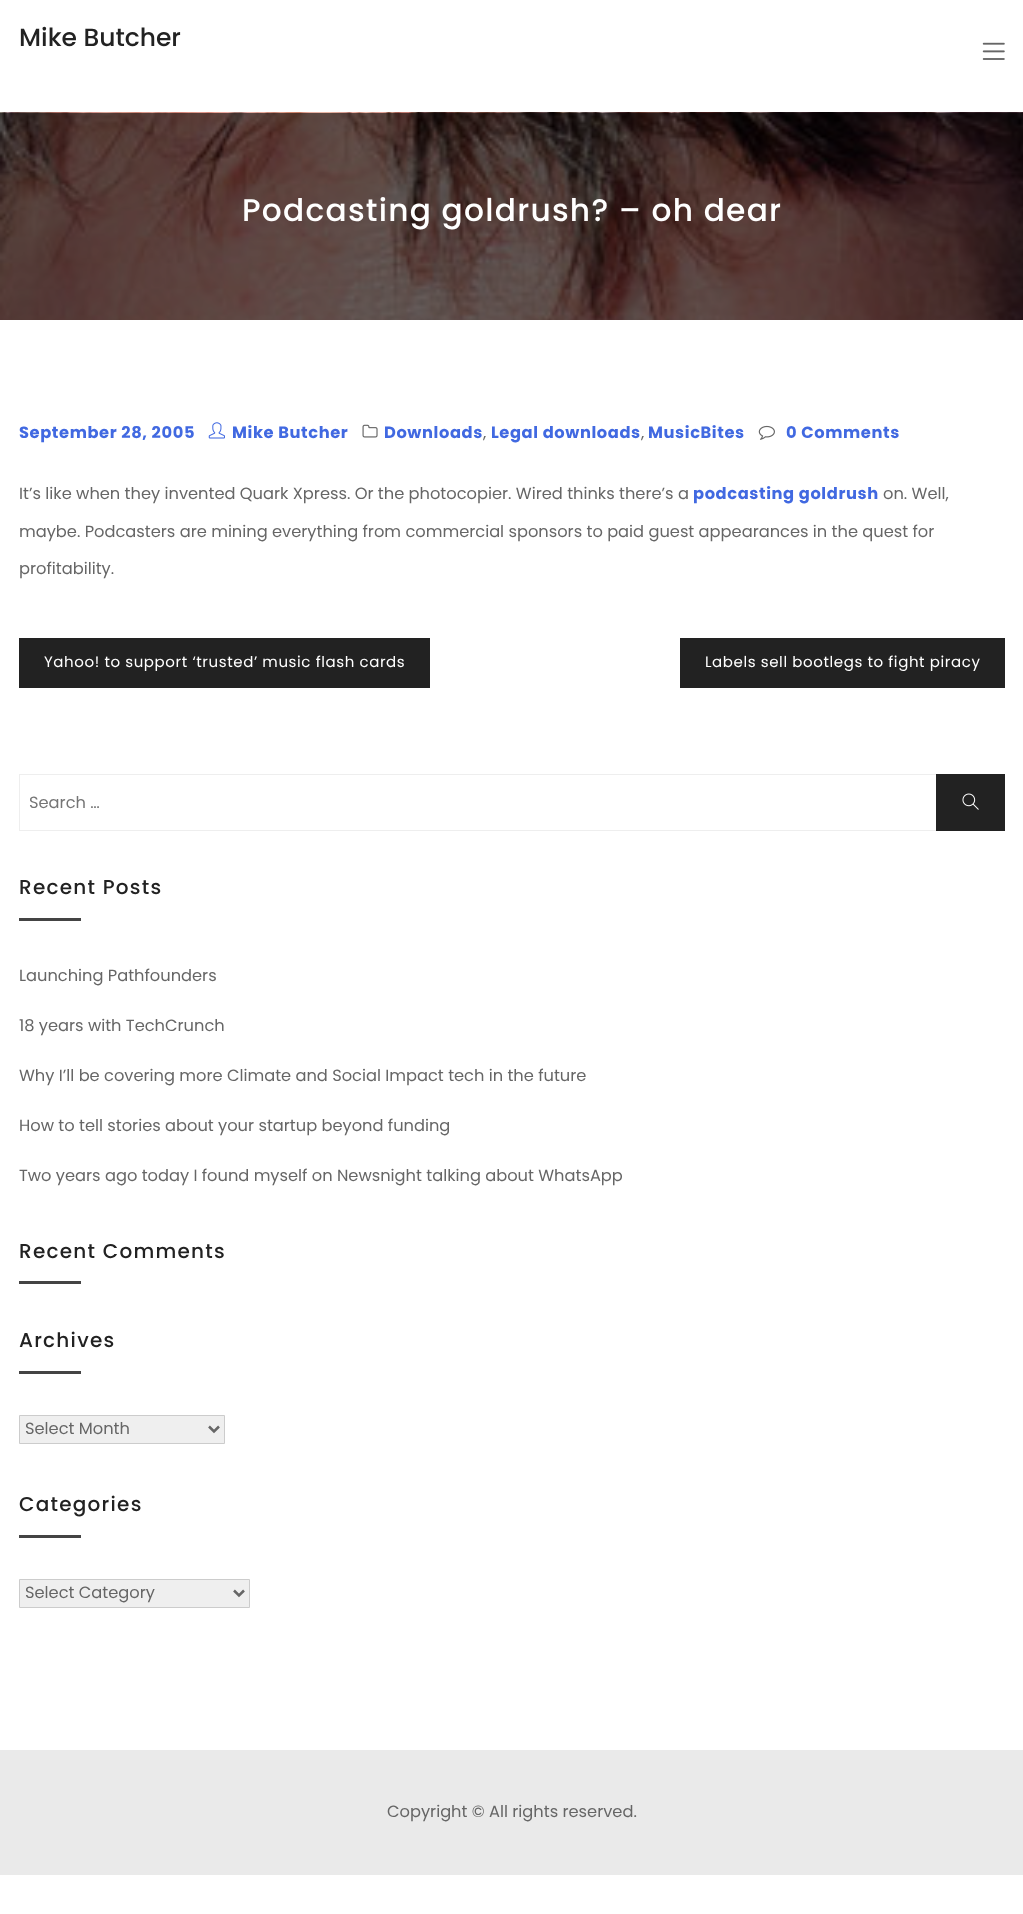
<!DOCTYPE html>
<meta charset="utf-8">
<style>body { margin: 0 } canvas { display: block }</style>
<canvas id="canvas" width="1023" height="1914"></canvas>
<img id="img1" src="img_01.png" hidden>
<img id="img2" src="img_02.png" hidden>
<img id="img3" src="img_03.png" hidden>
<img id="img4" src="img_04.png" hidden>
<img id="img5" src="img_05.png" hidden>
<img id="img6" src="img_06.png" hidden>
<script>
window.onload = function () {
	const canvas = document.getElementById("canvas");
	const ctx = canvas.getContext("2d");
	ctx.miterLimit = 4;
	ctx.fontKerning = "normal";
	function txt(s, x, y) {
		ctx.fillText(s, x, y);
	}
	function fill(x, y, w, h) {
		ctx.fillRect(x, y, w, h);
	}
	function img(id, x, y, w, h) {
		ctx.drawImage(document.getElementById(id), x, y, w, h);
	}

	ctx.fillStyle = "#FFFFFF";
	fill(0, 0, 1023, 1914);
	img("img1", 982, 42, 23, 18);
	img("img2", 0, 112, 1023, 208);
	img("img3", 208, 422, 17, 17);
	img("img4", 362, 424, 16, 14);
	img("img5", 758, 425, 17, 15);
	ctx.fillStyle = "#222222";
	fill(19, 638, 411, 50);
	fill(680, 638, 325, 50);
	ctx.strokeStyle = "#EEEEEE";
	ctx.strokeRect(19.5, 774.5, 985, 56);
	fill(936, 774, 69, 57);
	img("img6", 962, 793, 17, 17);
	ctx.fillStyle = "#444444";
	fill(19, 918, 62, 3);
	fill(19, 1281, 62, 3);
	fill(19, 1371, 62, 3);
	ctx.fillStyle = "#EFEFEF";
	ctx.beginPath();
	ctx.rect(19.5, 1415.5, 205, 28);
	ctx.fill();
	ctx.strokeStyle = "#CCCCCC";
	ctx.stroke();
	ctx.beginPath();
	ctx.moveTo(209, 1426.5);
	ctx.lineTo(214, 1431.5);
	ctx.lineTo(219, 1426.5);
	ctx.strokeStyle = "#666666";
	ctx.lineWidth = 2.5;
	ctx.stroke();
	ctx.fillStyle = "#444444";
	fill(19, 1535, 62, 3);
	ctx.fillStyle = "#EFEFEF";
	ctx.beginPath();
	ctx.rect(19.5, 1579.5, 230, 28);
	ctx.fill();
	ctx.strokeStyle = "#CCCCCC";
	ctx.lineWidth = 1;
	ctx.stroke();
	ctx.beginPath();
	ctx.moveTo(234, 1590.5);
	ctx.lineTo(239, 1595.5);
	ctx.lineTo(244, 1590.5);
	ctx.strokeStyle = "#666666";
	ctx.lineWidth = 2.5;
	ctx.stroke();
	ctx.fillStyle = "#EAEAEA";
	fill(0, 1750, 1023, 125);
	ctx.font = "500 25px Poppins";
	ctx.fillStyle = "#222222";
	txt("Mike Butcher", 19, 46);
	ctx.letterSpacing = "1.25px";
	ctx.font = "500 31.25px Poppins";
	ctx.fillStyle = "#FFFFFF";
	txt("Podcasting goldrush? – oh dear", 242, 221);
	ctx.letterSpacing = "0.6px";
	ctx.font = "bold 16.25px Poppins";
	ctx.fillStyle = "#4169E1";
	txt("September 28, 2005", 19, 438);
	txt("Mike Butcher", 232, 438);
	txt("Downloads", 384, 438);
	ctx.letterSpacing = "0px";
	ctx.font = "16.25px Poppins";
	ctx.fillStyle = "#666666";
	txt(",", 483, 438);
	ctx.letterSpacing = "0.6px";
	ctx.font = "bold 16.25px Poppins";
	ctx.fillStyle = "#4169E1";
	txt("Legal downloads", 491, 438);
	ctx.letterSpacing = "0px";
	ctx.font = "16.25px Poppins";
	ctx.fillStyle = "#666666";
	txt(",", 641, 438);
	ctx.letterSpacing = "0.6px";
	ctx.font = "bold 16.25px Poppins";
	ctx.fillStyle = "#4169E1";
	txt("MusicBites", 648, 438);
	txt("0 Comments", 786, 438);
	ctx.letterSpacing = "0px";
	ctx.font = "16.25px Poppins";
	ctx.fillStyle = "#666666";
	txt("It’s like when they invented Quark Xpress. Or the photocopier. Wired thinks there’s a", 19, 499);
	ctx.letterSpacing = "0.6px";
	ctx.font = "bold 16.25px Poppins";
	ctx.fillStyle = "#4169E1";
	txt("podcasting goldrush", 693, 499);
	ctx.letterSpacing = "0px";
	ctx.font = "16.25px Poppins";
	ctx.fillStyle = "#666666";
	txt("on. Well,", 883, 499);
	txt("maybe. Podcasters are mining everything from commercial sponsors to paid guest appearances in the quest for", 19, 537);
	txt("profitability.", 19, 574);
	ctx.letterSpacing = "0.6px";
	ctx.font = "15px Poppins";
	ctx.fillStyle = "#FFFFFF";
	txt("Yahoo! to support ‘trusted’ music flash cards", 44, 667);
	txt("Labels sell bootlegs to fight piracy", 705, 667);
	ctx.letterSpacing = "0px";
	ctx.font = "16.25px Poppins";
	ctx.fillStyle = "#757575";
	txt("Search …", 29, 808);
	ctx.letterSpacing = "1.25px";
	ctx.font = "500 20px Poppins";
	ctx.fillStyle = "#222222";
	txt("Recent Posts", 19, 894);
	ctx.letterSpacing = "0px";
	ctx.font = "16.25px Poppins";
	ctx.fillStyle = "#666666";
	txt("Launching Pathfounders", 19, 981);
	txt("18 years with TechCrunch", 19, 1031);
	txt("Why I’ll be covering more Climate and Social Impact tech in the future", 19, 1081);
	txt("How to tell stories about your startup beyond funding", 19, 1131);
	txt("Two years ago today I found myself on Newsnight talking about WhatsApp", 19, 1181);
	ctx.letterSpacing = "1.25px";
	ctx.font = "500 20px Poppins";
	ctx.fillStyle = "#222222";
	txt("Recent Comments", 19, 1258);
	txt("Archives", 19, 1347);
	ctx.letterSpacing = "0px";
	ctx.font = "16.25px Poppins";
	ctx.fillStyle = "#666666";
	txt("Select Month", 25, 1434);
	ctx.letterSpacing = "1.25px";
	ctx.font = "500 20px Poppins";
	ctx.fillStyle = "#222222";
	txt("Categories", 19, 1511);
	ctx.letterSpacing = "0px";
	ctx.font = "16.25px Poppins";
	ctx.fillStyle = "#666666";
	txt("Select Category", 25, 1598);
	txt("Copyright © All rights reserved.", 387, 1817);
};
</script>
